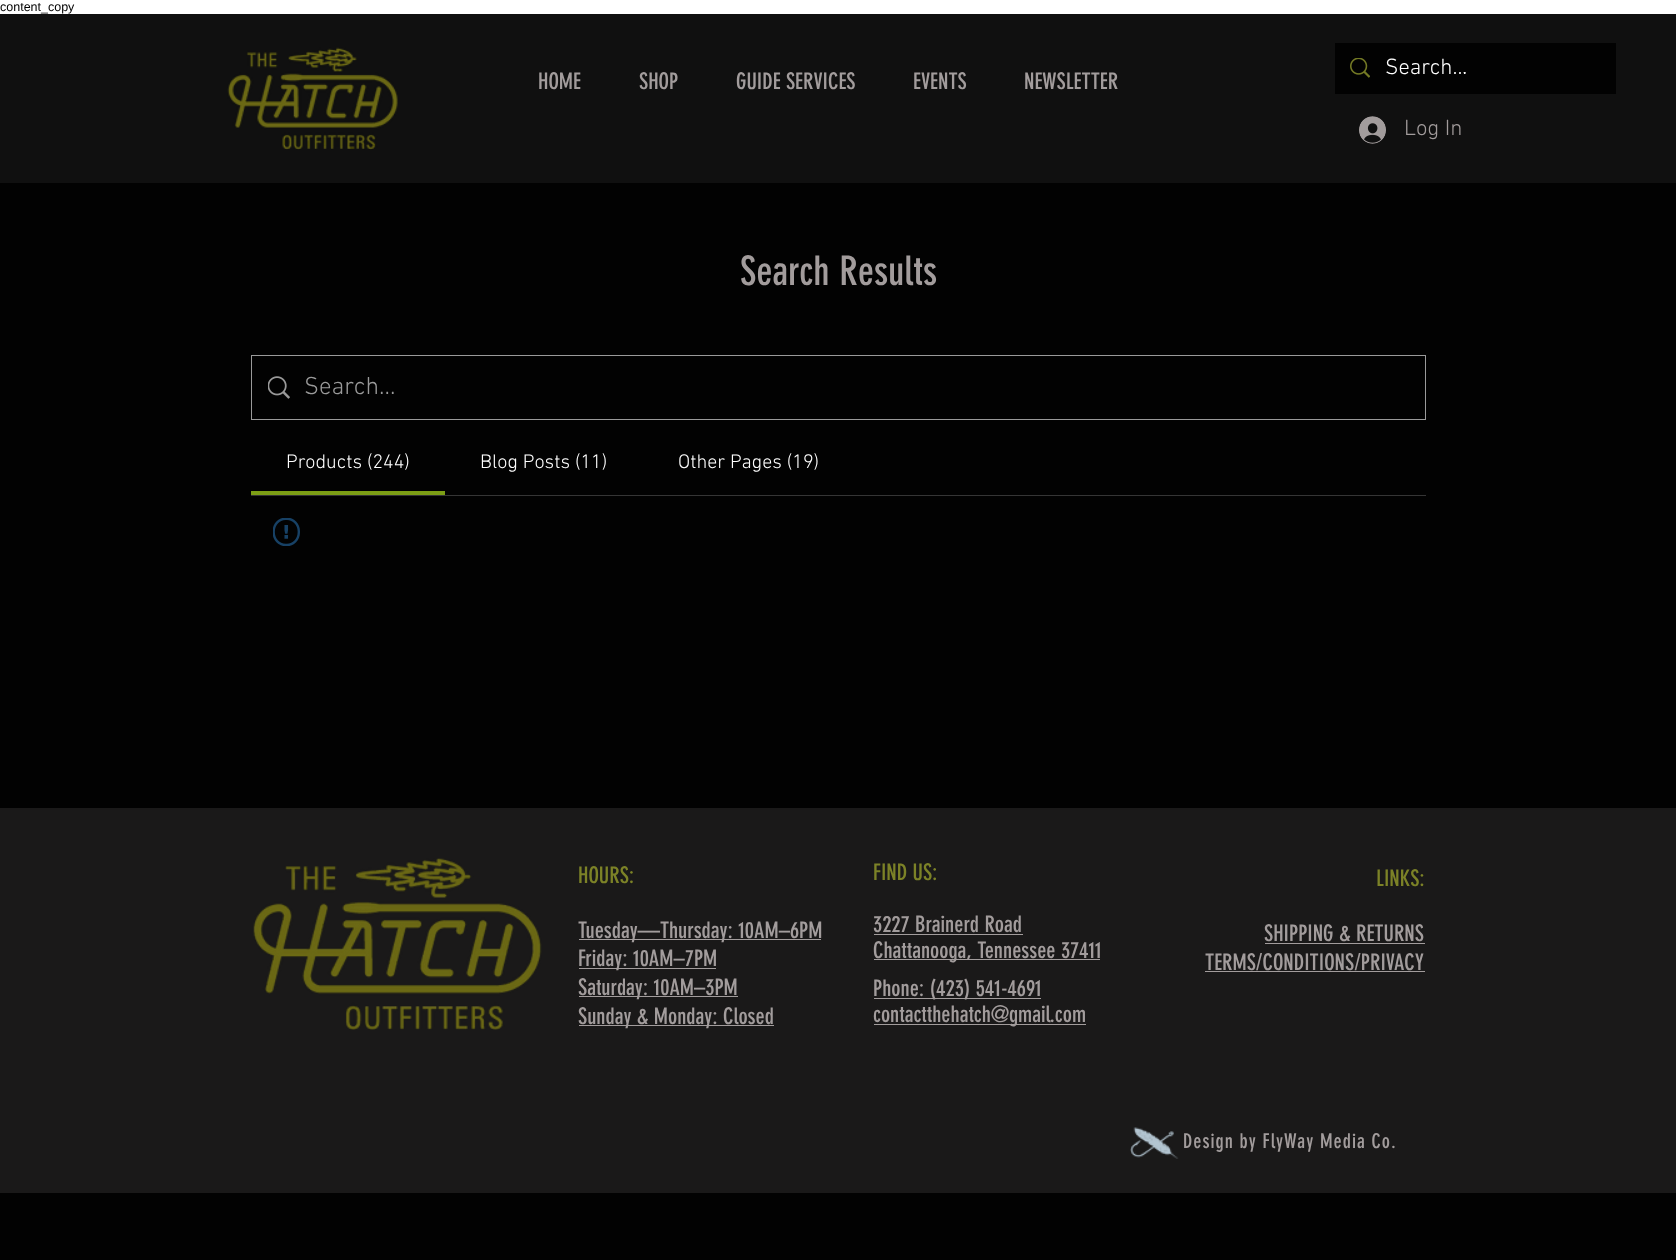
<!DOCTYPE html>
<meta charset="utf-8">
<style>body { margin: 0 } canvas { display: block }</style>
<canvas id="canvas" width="1676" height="1260"></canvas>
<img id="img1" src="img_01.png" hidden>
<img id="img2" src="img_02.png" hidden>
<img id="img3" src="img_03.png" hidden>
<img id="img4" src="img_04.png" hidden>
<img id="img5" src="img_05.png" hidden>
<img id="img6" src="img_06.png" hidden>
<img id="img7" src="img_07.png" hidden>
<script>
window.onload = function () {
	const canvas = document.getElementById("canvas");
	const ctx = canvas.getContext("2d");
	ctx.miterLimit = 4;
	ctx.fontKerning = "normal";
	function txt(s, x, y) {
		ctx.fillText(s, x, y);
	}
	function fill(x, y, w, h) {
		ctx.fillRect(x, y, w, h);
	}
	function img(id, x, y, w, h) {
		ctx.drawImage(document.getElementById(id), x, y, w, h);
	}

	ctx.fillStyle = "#FFFFFF";
	fill(0, 0, 1676, 1260);
	ctx.fillStyle = "#101010";
	fill(0, 14, 1676, 169);
	img("img1", 227, 47, 171, 103);
	ctx.fillStyle = "#020202";
	fill(1335, 43, 281, 51);
	img("img2", 1350, 58, 20, 20);
	img("img3", 1359, 116, 27, 28);
	fill(0, 183, 1676, 1077);
	ctx.strokeStyle = "#9A9A9A";
	ctx.strokeRect(251.5, 355.5, 1174, 64);
	img("img4", 268, 376, 22, 23);
	ctx.fillStyle = "#353535";
	fill(251, 495, 1175, 1);
	ctx.fillStyle = "#7C9E15";
	fill(251, 491, 194, 4);
	img("img5", 273, 518, 27, 28);
	ctx.fillStyle = "#1A1919";
	fill(0, 808, 1676, 385);
	img("img6", 253, 858, 289, 172);
	ctx.fillStyle = "#A29C9C";
	fill(579, 939, 242, 1);
	fill(579, 968, 137, 1);
	fill(579, 996, 159, 1);
	fill(579, 1025, 195, 1);
	fill(874, 934, 149, 1);
	fill(874, 959, 226, 1);
	fill(874, 998, 167, 1);
	fill(874, 1024, 212, 1);
	fill(1265, 943, 160, 1);
	fill(1205, 971, 220, 1);
	img("img7", 1130, 1127, 49, 32);
	ctx.font = "12.5px Liberation Sans";
	ctx.fillStyle = "#000000";
	txt("content_copy", 0, 11);
	ctx.font = "22.5px 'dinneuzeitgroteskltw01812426'";
	ctx.fillStyle = "#A29C9C";
	txt("HOME", 538, 89);
	txt("SHOP", 639, 89);
	txt("GUIDE SERVICES", 736, 89);
	txt("EVENTS", 913, 89);
	txt("NEWSLETTER", 1024, 89);
	ctx.font = "300 22.5px 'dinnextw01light'";
	ctx.fillStyle = "#FFFFFF";
	txt("Search...", 1385, 74);
	ctx.fillStyle = "#A29C9C";
	txt("Log In", 1404, 135);
	ctx.font = "40px 'dinneuzeitgroteskltw01812426'";
	txt("Search Results", 740, 285);
	ctx.font = "300 25px 'dinnextw01light'";
	ctx.fillStyle = "#9A9A9A";
	txt("Search...", 304, 394);
	ctx.font = "300 20px 'dinnextw01light'";
	ctx.fillStyle = "#FFFFFF";
	txt("Products (244)", 286, 468);
	txt("Blog Posts (11)", 480, 468);
	txt("Other Pages (19)", 678, 468);
	ctx.font = "22.5px 'dinneuzeitgroteskltw01812426'";
	ctx.fillStyle = "#7C8227";
	txt("HOURS:", 578, 883);
	ctx.fillStyle = "#A29C9C";
	txt("Tuesday—Thursday: 10AM–6PM", 578, 938);
	txt("Friday: 10AM–7PM", 578, 966);
	txt("Saturday: 10AM–3PM", 578, 995);
	txt("Sunday & Monday: Closed", 578, 1024);
	ctx.fillStyle = "#7C8227";
	txt("FIND US:", 873, 880);
	ctx.fillStyle = "#A29C9C";
	txt("3227 Brainerd Road", 873, 932);
	txt("Chattanooga, Tennessee 37411", 873, 958);
	txt("Phone: (423) 541-4691", 873, 996);
	txt("contactthehatch@gmail.com", 873, 1022);
	ctx.fillStyle = "#7C8227";
	txt("LINKS:", 1376, 886);
	ctx.fillStyle = "#A29C9C";
	txt("SHIPPING & RETURNS", 1264, 941);
	txt("TERMS/CONDITIONS/PRIVACY", 1205, 970);
	ctx.letterSpacing = "1px";
	ctx.font = "20px 'dinneuzeitgroteskltw01812426'";
	txt("Design by FlyWay Media Co.", 1183, 1148);
};
</script>
